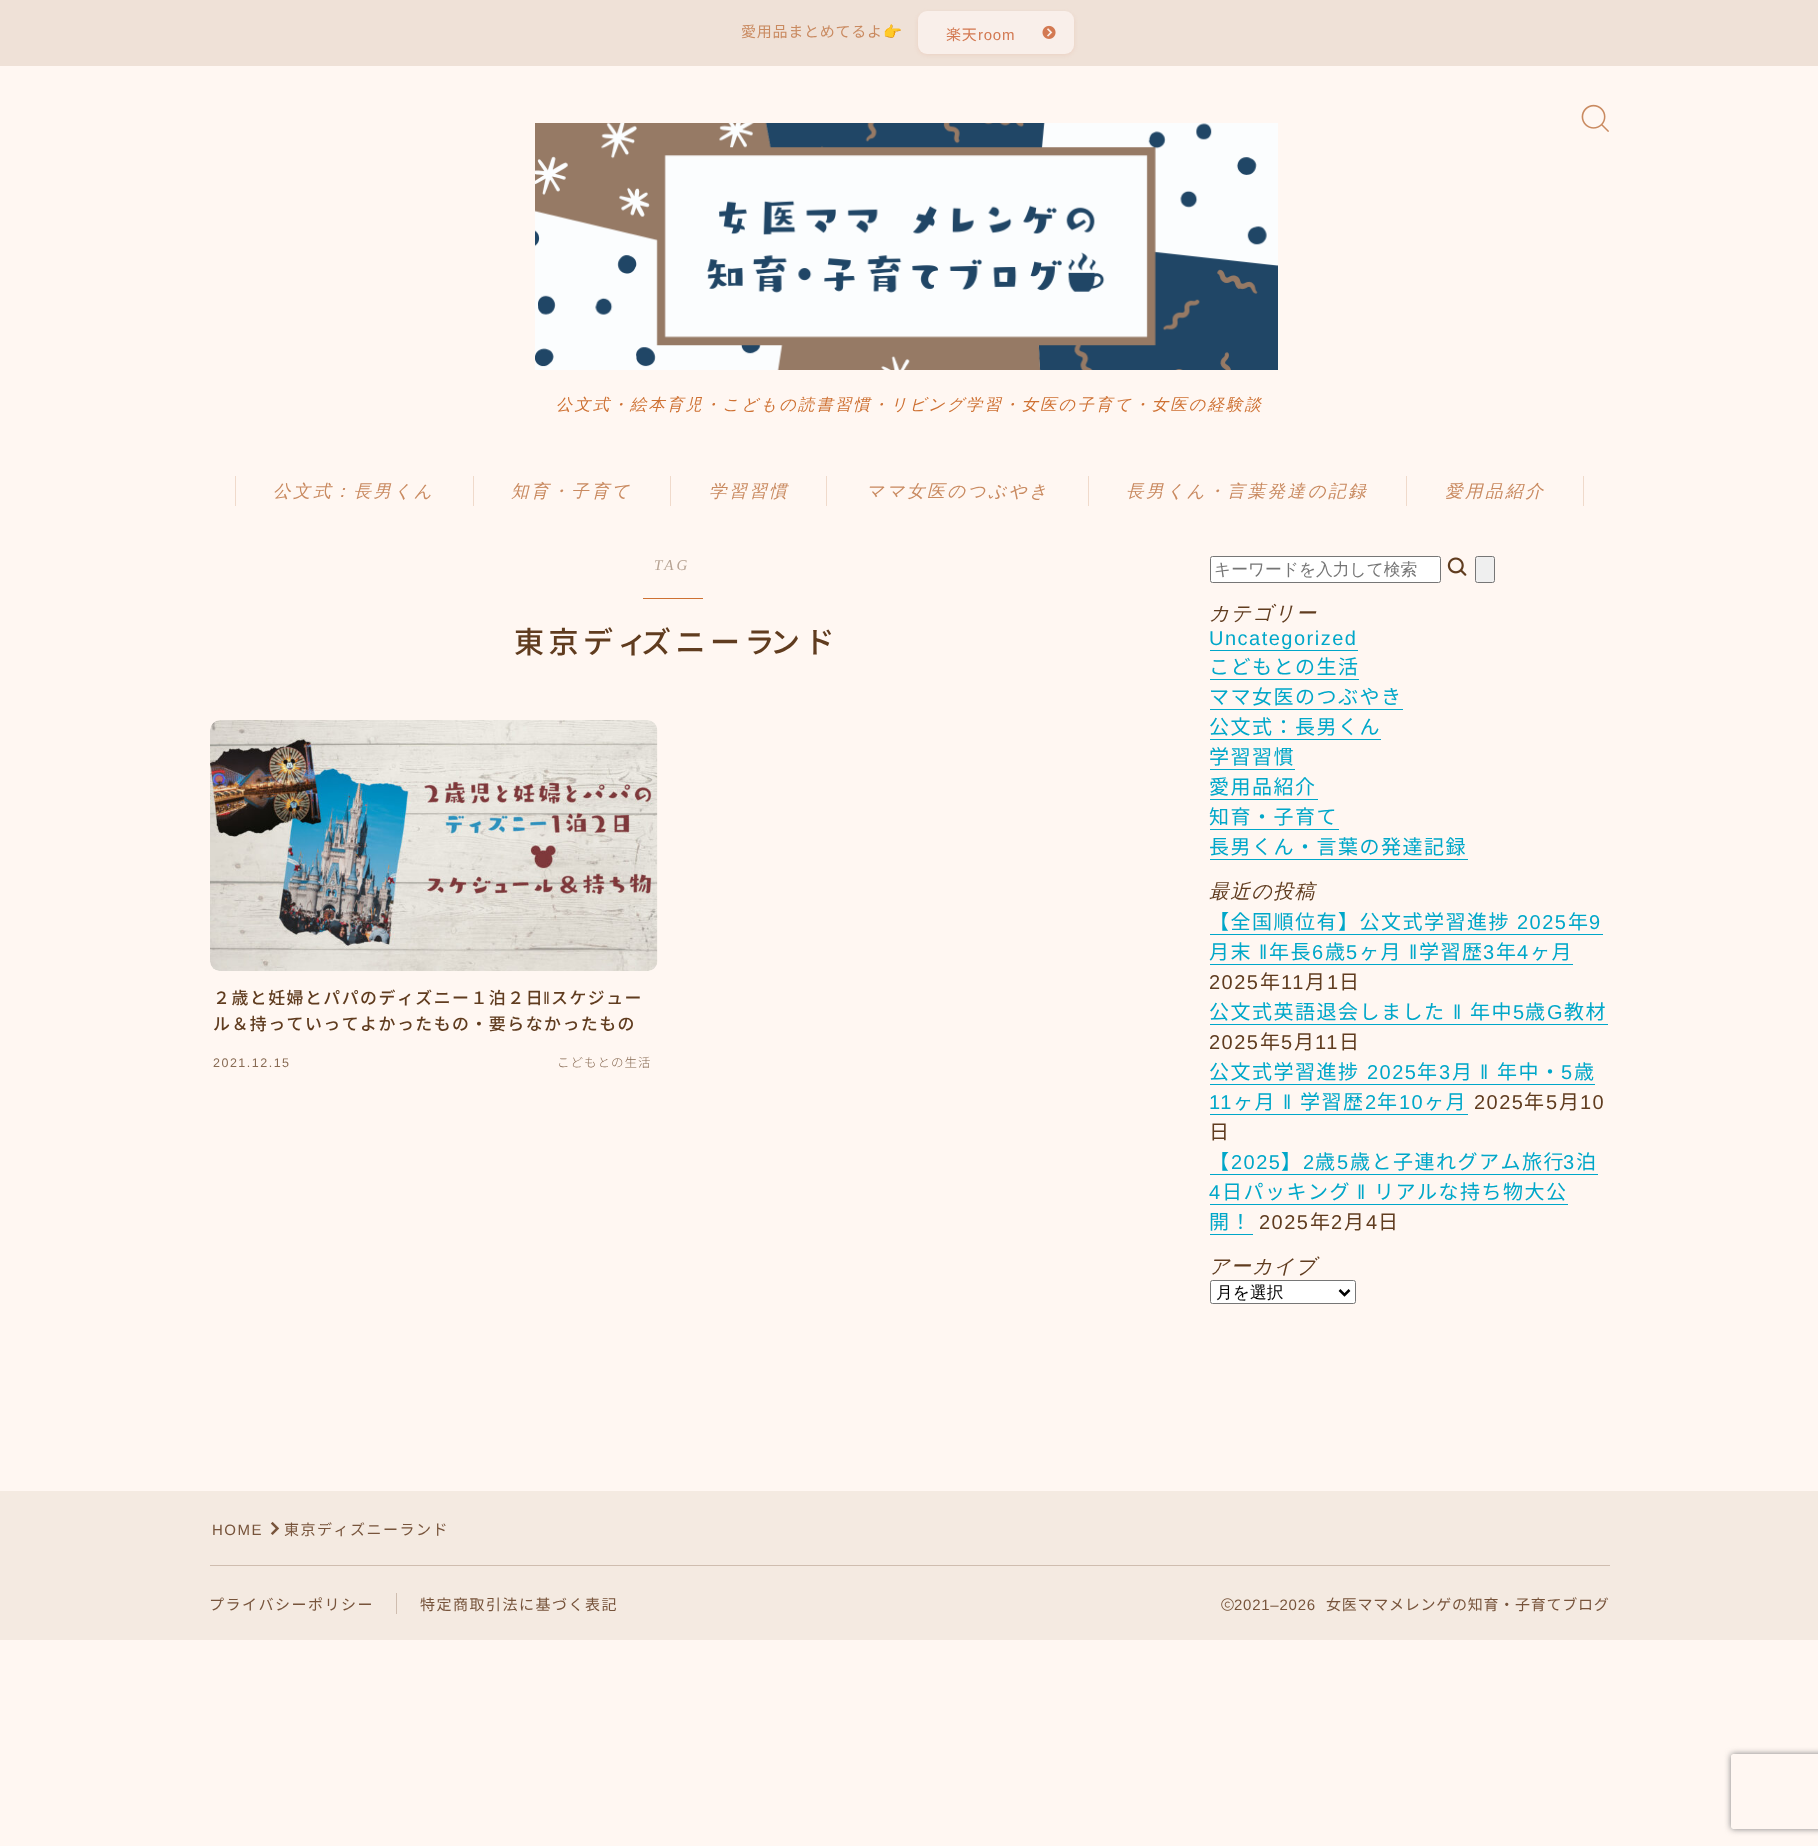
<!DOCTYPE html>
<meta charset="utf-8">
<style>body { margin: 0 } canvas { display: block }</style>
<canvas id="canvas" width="1818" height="1846"></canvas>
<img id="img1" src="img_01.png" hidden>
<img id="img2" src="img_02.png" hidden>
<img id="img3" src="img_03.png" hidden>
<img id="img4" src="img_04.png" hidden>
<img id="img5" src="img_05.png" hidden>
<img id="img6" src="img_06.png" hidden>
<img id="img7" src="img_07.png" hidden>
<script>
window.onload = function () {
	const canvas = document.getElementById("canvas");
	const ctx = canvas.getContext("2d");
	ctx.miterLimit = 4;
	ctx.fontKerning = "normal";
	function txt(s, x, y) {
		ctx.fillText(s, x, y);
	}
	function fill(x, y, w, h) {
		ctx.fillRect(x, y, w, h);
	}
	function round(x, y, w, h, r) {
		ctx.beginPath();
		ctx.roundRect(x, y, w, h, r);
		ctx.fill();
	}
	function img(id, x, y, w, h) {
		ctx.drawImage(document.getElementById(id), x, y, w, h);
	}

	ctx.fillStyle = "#FFF7F2";
	fill(0, 0, 1818, 1846);
	ctx.fillStyle = "#EFE1D7";
	fill(0, 0, 1818, 66);
	ctx.fillStyle = "rgba(229, 185, 164, 0.4)";
	ctx.filter = "blur(2px)";
	ctx.beginPath();
	ctx.roundRect(918, 13, 156, 42, 9);
	ctx.fill();
	ctx.filter = "none";
	ctx.fillStyle = "#F9EFEA";
	round(918, 11, 156, 43, 9);
	img("img1", 1042, 25, 14, 14);
	img("img2", 1581, 104, 28, 28);
	img("img3", 535, 123, 743, 247);
	ctx.fillStyle = "#F0DACB";
	fill(473, 476, 1, 30);
	fill(235, 476, 1, 30);
	fill(670, 476, 1, 30);
	fill(826, 476, 1, 30);
	fill(1088, 476, 1, 30);
	fill(1406, 476, 1, 30);
	fill(1583, 476, 1, 30);
	ctx.fillStyle = "#CE7133";
	fill(643, 598, 60, 1);
	img("img4", 210, 720, 448, 251);
	ctx.fillStyle = "#FFFFFF";
	ctx.beginPath();
	ctx.roundRect(1210.5, 556.5, 230, 26, 2);
	ctx.fill();
	ctx.strokeStyle = "#767676";
	ctx.stroke();
	img("img5", 1447, 557, 20, 19);
	ctx.fillStyle = "#EFEFEF";
	ctx.beginPath();
	ctx.roundRect(1475.5, 556.5, 19, 26, 2);
	ctx.fill();
	ctx.stroke();
	ctx.fillStyle = "#00A7C9";
	fill(1210, 650, 148, 1);
	fill(1210, 679, 149, 1);
	fill(1210, 709, 193, 1);
	fill(1210, 739, 171, 1);
	fill(1210, 769, 85, 1);
	fill(1210, 799, 108, 1);
	fill(1210, 829, 129, 1);
	fill(1210, 859, 258, 1);
	fill(1210, 934, 393, 1);
	fill(1210, 964, 363, 1);
	fill(1210, 1024, 398, 1);
	fill(1210, 1084, 385, 1);
	fill(1210, 1114, 258, 1);
	fill(1210, 1174, 388, 1);
	fill(1210, 1204, 358, 1);
	fill(1210, 1234, 43, 1);
	ctx.fillStyle = "#FFFFFF";
	ctx.beginPath();
	ctx.roundRect(1210.5, 1280.5, 145, 23, 2);
	ctx.fill();
	ctx.stroke();
	ctx.beginPath();
	ctx.moveTo(1339.5, 1290);
	ctx.lineTo(1344.5, 1295);
	ctx.lineTo(1349.5, 1290);
	ctx.strokeStyle = "#000000";
	ctx.lineWidth = 2.5;
	ctx.stroke();
	ctx.fillStyle = "#F4EAE1";
	fill(0, 1491, 1818, 149);
	img("img6", 270, 1521, 10, 14);
	ctx.fillStyle = "#CFBDAF";
	fill(210, 1565, 1400, 1);
	fill(396, 1593, 1, 21);
	img("img7", 1221, 1598, 13, 13);
	ctx.save();
	ctx.beginPath();
	ctx.moveTo(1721, 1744);
	ctx.lineTo(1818, 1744);
	ctx.lineTo(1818, 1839);
	ctx.lineTo(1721, 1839);
	ctx.closePath();
	ctx.moveTo(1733.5, 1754);
	ctx.lineTo(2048.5, 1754);
	ctx.bezierCurveTo(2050, 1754, 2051, 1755, 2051, 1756.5);
	ctx.lineTo(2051, 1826.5);
	ctx.bezierCurveTo(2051, 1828, 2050, 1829, 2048.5, 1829);
	ctx.lineTo(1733.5, 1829);
	ctx.bezierCurveTo(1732, 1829, 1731, 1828, 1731, 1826.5);
	ctx.lineTo(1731, 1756.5);
	ctx.bezierCurveTo(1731, 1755, 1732, 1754, 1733.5, 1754);
	ctx.closePath();
	ctx.clip("evenodd");
	ctx.fillStyle = "#808080";
	ctx.filter = "blur(3px)";
	ctx.beginPath();
	ctx.roundRect(1731, 1754, 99, 75, 2.5);
	ctx.fill();
	ctx.filter = "none";
	ctx.restore();
	ctx.letterSpacing = "0.75px";
	ctx.font = "15px Noto Sans CJK JP";
	ctx.fillStyle = "#C98A60";
	txt("愛用品まとめてるよ", 741, 37);
	ctx.font = "15px Noto Color Emoji";
	txt("👉", 883, 37);
	ctx.font = "15px Noto Sans CJK JP";
	ctx.fillStyle = "#D37952";
	txt("楽天", 946, 40);
	ctx.font = "15px Liberation Sans";
	txt("room", 978, 40);
	ctx.letterSpacing = "2.25px";
	ctx.font = "italic 500 16.25px WenQuanYi Zen Hei";
	ctx.fillStyle = "#CE7133";
	txt("公文式・絵本育児・こどもの読書習慣・リビング学習・女医の子育て・女医の経験談", 556, 410);
	ctx.letterSpacing = "2.6px";
	ctx.font = "italic 500 17.5px WenQuanYi Zen Hei";
	ctx.fillStyle = "#C98A60";
	txt("公文式：長男くん", 273, 497);
	txt("知育・子育て", 511, 497);
	txt("学習習慣", 709, 497);
	txt("ママ女医のつぶやき", 866, 497);
	txt("長男くん・言葉発達の記録", 1126, 497);
	txt("愛用品紹介", 1445, 497);
	ctx.letterSpacing = "3px";
	ctx.font = "italic 15px Liberation Serif";
	ctx.fillStyle = "#B7A393";
	txt("TAG", 654, 570);
	ctx.letterSpacing = "4.5px";
	ctx.font = "500 30px Noto Sans CJK JP";
	ctx.fillStyle = "#603C1F";
	txt("東京ディ", 514, 653);
	txt("ズニーラ", 641, 653);
	txt("ンド", 770, 653);
	ctx.letterSpacing = "1.5px";
	ctx.font = "500 16.9px Noto Sans CJK JP";
	txt("２歳と妊婦とパパのディズニー１泊２日", 213, 1004);
	ctx.font = "16.9px Liberation Sans";
	txt("‖", 543, 1004);
	ctx.font = "500 16.9px Noto Sans CJK JP";
	txt("スケジュー", 551, 1004);
	txt("ル＆持っていってよかったもの・要らなかったもの", 213, 1030);
	ctx.font = "12.5px Liberation Sans";
	ctx.fillStyle = "#886B54";
	txt("2021.12.15", 213, 1067);
	ctx.letterSpacing = "1px";
	ctx.font = "300 12.5px Noto Sans CJK JP";
	txt("こどもとの生活", 557, 1067);
	ctx.letterSpacing = "0px";
	ctx.font = "500 16.75px WenQuanYi Zen Hei";
	ctx.fillStyle = "#757575";
	txt("キーワードを入力して検索", 1214, 575);
	ctx.letterSpacing = "1.25px";
	ctx.font = "italic 500 20px WenQuanYi Zen Hei";
	ctx.fillStyle = "#603C1F";
	txt("カテゴリー", 1209, 620);
	ctx.letterSpacing = "1.5px";
	ctx.font = "20px Liberation Sans";
	ctx.fillStyle = "#00A7C9";
	txt("Uncategorized", 1209, 645);
	ctx.font = "20px Noto Sans CJK JP";
	txt("こどもとの生活", 1209, 674);
	txt("ママ女医のつぶやき", 1209, 704);
	txt("公文式：長男くん", 1209, 734);
	txt("学習習慣", 1209, 764);
	txt("愛用品紹介", 1209, 794);
	txt("知育・子育て", 1209, 824);
	txt("長男くん・言葉の発達記録", 1209, 854);
	ctx.letterSpacing = "1.25px";
	ctx.font = "italic 500 20px WenQuanYi Zen Hei";
	ctx.fillStyle = "#603C1F";
	txt("最近の投稿", 1209, 898);
	ctx.letterSpacing = "1.5px";
	ctx.font = "20px Noto Sans CJK JP";
	ctx.fillStyle = "#00A7C9";
	txt("【全国順位有】公文式学習進捗", 1209, 929);
	ctx.font = "20px Liberation Sans";
	txt("2025", 1517, 929);
	ctx.font = "20px Noto Sans CJK JP";
	txt("年", 1568, 929);
	ctx.font = "20px Liberation Sans";
	txt("9", 1589, 929);
	ctx.font = "20px Noto Sans CJK JP";
	txt("月末", 1209, 959);
	ctx.font = "20px Liberation Sans";
	txt("‖", 1259, 959);
	ctx.font = "20px Noto Sans CJK JP";
	txt("年長", 1269, 959);
	ctx.font = "20px Liberation Sans";
	txt("6", 1312, 959);
	ctx.font = "20px Noto Sans CJK JP";
	txt("歳", 1325, 959);
	ctx.font = "20px Liberation Sans";
	txt("5", 1346, 959);
	ctx.font = "20px Noto Sans CJK JP";
	txt("ヶ月", 1359, 959);
	ctx.font = "20px Liberation Sans";
	txt("‖", 1409, 959);
	ctx.font = "20px Noto Sans CJK JP";
	txt("学習歴", 1419, 959);
	ctx.font = "20px Liberation Sans";
	txt("3", 1483, 959);
	ctx.font = "20px Noto Sans CJK JP";
	txt("年", 1496, 959);
	ctx.font = "20px Liberation Sans";
	txt("4", 1517, 959);
	ctx.font = "20px Noto Sans CJK JP";
	txt("ヶ月", 1530, 959);
	ctx.font = "20px Liberation Sans";
	ctx.fillStyle = "#603C1F";
	txt("2025", 1209, 989);
	ctx.font = "20px Noto Sans CJK JP";
	txt("年", 1260, 989);
	ctx.font = "20px Liberation Sans";
	txt("11", 1281, 989);
	ctx.font = "20px Noto Sans CJK JP";
	txt("月", 1305, 989);
	ctx.font = "20px Liberation Sans";
	txt("1", 1327, 989);
	ctx.font = "20px Noto Sans CJK JP";
	txt("日", 1339, 989);
	ctx.fillStyle = "#00A7C9";
	txt("公文式英語退会しました", 1209, 1019);
	ctx.font = "20px Liberation Sans";
	txt("‖", 1453, 1019);
	ctx.font = "20px Noto Sans CJK JP";
	txt("年中", 1470, 1019);
	ctx.font = "20px Liberation Sans";
	txt("5", 1513, 1019);
	ctx.font = "20px Noto Sans CJK JP";
	txt("歳", 1525, 1019);
	ctx.font = "20px Liberation Sans";
	txt("G", 1547, 1019);
	ctx.font = "20px Noto Sans CJK JP";
	txt("教材", 1564, 1019);
	ctx.font = "20px Liberation Sans";
	ctx.fillStyle = "#603C1F";
	txt("2025", 1209, 1049);
	ctx.font = "20px Noto Sans CJK JP";
	txt("年", 1260, 1049);
	ctx.font = "20px Liberation Sans";
	txt("5", 1281, 1049);
	ctx.font = "20px Noto Sans CJK JP";
	txt("月", 1294, 1049);
	ctx.font = "20px Liberation Sans";
	txt("11", 1315, 1049);
	ctx.font = "20px Noto Sans CJK JP";
	txt("日", 1339, 1049);
	ctx.fillStyle = "#00A7C9";
	txt("公文式学習進捗", 1209, 1079);
	ctx.font = "20px Liberation Sans";
	txt("2025", 1367, 1079);
	ctx.font = "20px Noto Sans CJK JP";
	txt("年", 1417, 1079);
	ctx.font = "20px Liberation Sans";
	txt("3", 1439, 1079);
	ctx.font = "20px Noto Sans CJK JP";
	txt("月", 1452, 1079);
	ctx.font = "20px Liberation Sans";
	txt("‖", 1480, 1079);
	ctx.font = "20px Noto Sans CJK JP";
	txt("年中・", 1497, 1079);
	ctx.font = "20px Liberation Sans";
	txt("5", 1561, 1079);
	ctx.font = "20px Noto Sans CJK JP";
	txt("歳", 1574, 1079);
	ctx.font = "20px Liberation Sans";
	txt("11", 1209, 1109);
	ctx.font = "20px Noto Sans CJK JP";
	txt("ヶ月", 1233, 1109);
	ctx.font = "20px Liberation Sans";
	txt("‖", 1283, 1109);
	ctx.font = "20px Noto Sans CJK JP";
	txt("学習歴", 1300, 1109);
	ctx.font = "20px Liberation Sans";
	txt("2", 1365, 1109);
	ctx.font = "20px Noto Sans CJK JP";
	txt("年", 1377, 1109);
	ctx.font = "20px Liberation Sans";
	txt("10", 1399, 1109);
	ctx.font = "20px Noto Sans CJK JP";
	txt("ヶ月", 1424, 1109);
	ctx.font = "20px Liberation Sans";
	ctx.fillStyle = "#603C1F";
	txt("2025", 1474, 1109);
	ctx.font = "20px Noto Sans CJK JP";
	txt("年", 1524, 1109);
	ctx.font = "20px Liberation Sans";
	txt("5", 1546, 1109);
	ctx.font = "20px Noto Sans CJK JP";
	txt("月", 1559, 1109);
	ctx.font = "20px Liberation Sans";
	txt("10", 1580, 1109);
	ctx.font = "20px Noto Sans CJK JP";
	txt("日", 1209, 1139);
	ctx.fillStyle = "#00A7C9";
	txt("【", 1209, 1169);
	ctx.font = "20px Liberation Sans";
	txt("2025", 1231, 1169);
	ctx.font = "20px Noto Sans CJK JP";
	txt("】", 1281, 1169);
	ctx.font = "20px Liberation Sans";
	txt("2", 1303, 1169);
	ctx.font = "20px Noto Sans CJK JP";
	txt("歳", 1315, 1169);
	ctx.font = "20px Liberation Sans";
	txt("5", 1337, 1169);
	ctx.font = "20px Noto Sans CJK JP";
	txt("歳と子連れグアム旅行", 1350, 1169);
	ctx.font = "20px Liberation Sans";
	txt("3", 1563, 1169);
	ctx.font = "20px Noto Sans CJK JP";
	txt("泊", 1576, 1169);
	ctx.font = "20px Liberation Sans";
	txt("4", 1209, 1199);
	ctx.font = "20px Noto Sans CJK JP";
	txt("日パッキング", 1222, 1199);
	ctx.font = "20px Liberation Sans";
	txt("‖", 1357, 1199);
	ctx.font = "20px Noto Sans CJK JP";
	txt("リアルな持ち物大公", 1374, 1199);
	txt("開！", 1209, 1229);
	ctx.font = "20px Liberation Sans";
	ctx.fillStyle = "#603C1F";
	txt("2025", 1259, 1229);
	ctx.font = "20px Noto Sans CJK JP";
	txt("年", 1310, 1229);
	ctx.font = "20px Liberation Sans";
	txt("2", 1331, 1229);
	ctx.font = "20px Noto Sans CJK JP";
	txt("月", 1344, 1229);
	ctx.font = "20px Liberation Sans";
	txt("4", 1366, 1229);
	ctx.font = "20px Noto Sans CJK JP";
	txt("日", 1378, 1229);
	ctx.letterSpacing = "1.25px";
	ctx.font = "italic 500 20px WenQuanYi Zen Hei";
	txt("アーカイブ", 1209, 1273);
	ctx.letterSpacing = "0px";
	ctx.font = "500 16.75px WenQuanYi Zen Hei";
	ctx.fillStyle = "#000000";
	txt("月を選択", 1216, 1298);
	ctx.letterSpacing = "1.5px";
	ctx.font = "15px Liberation Sans";
	ctx.fillStyle = "#77543B";
	txt("HOME", 212, 1535);
	ctx.font = "15px Noto Sans CJK JP";
	txt("東京ディズニーランド", 284, 1535);
	txt("プライバシーポリシー", 209, 1610);
	txt("特定商取引法に基づく表記", 420, 1610);
	ctx.letterSpacing = "0.75px";
	ctx.font = "15px Liberation Sans";
	txt("2021–2026", 1234, 1610);
	ctx.font = "15px Noto Sans CJK JP";
	txt("女医ママメレンゲの知育・子育てブログ", 1326, 1610);
};
</script>
